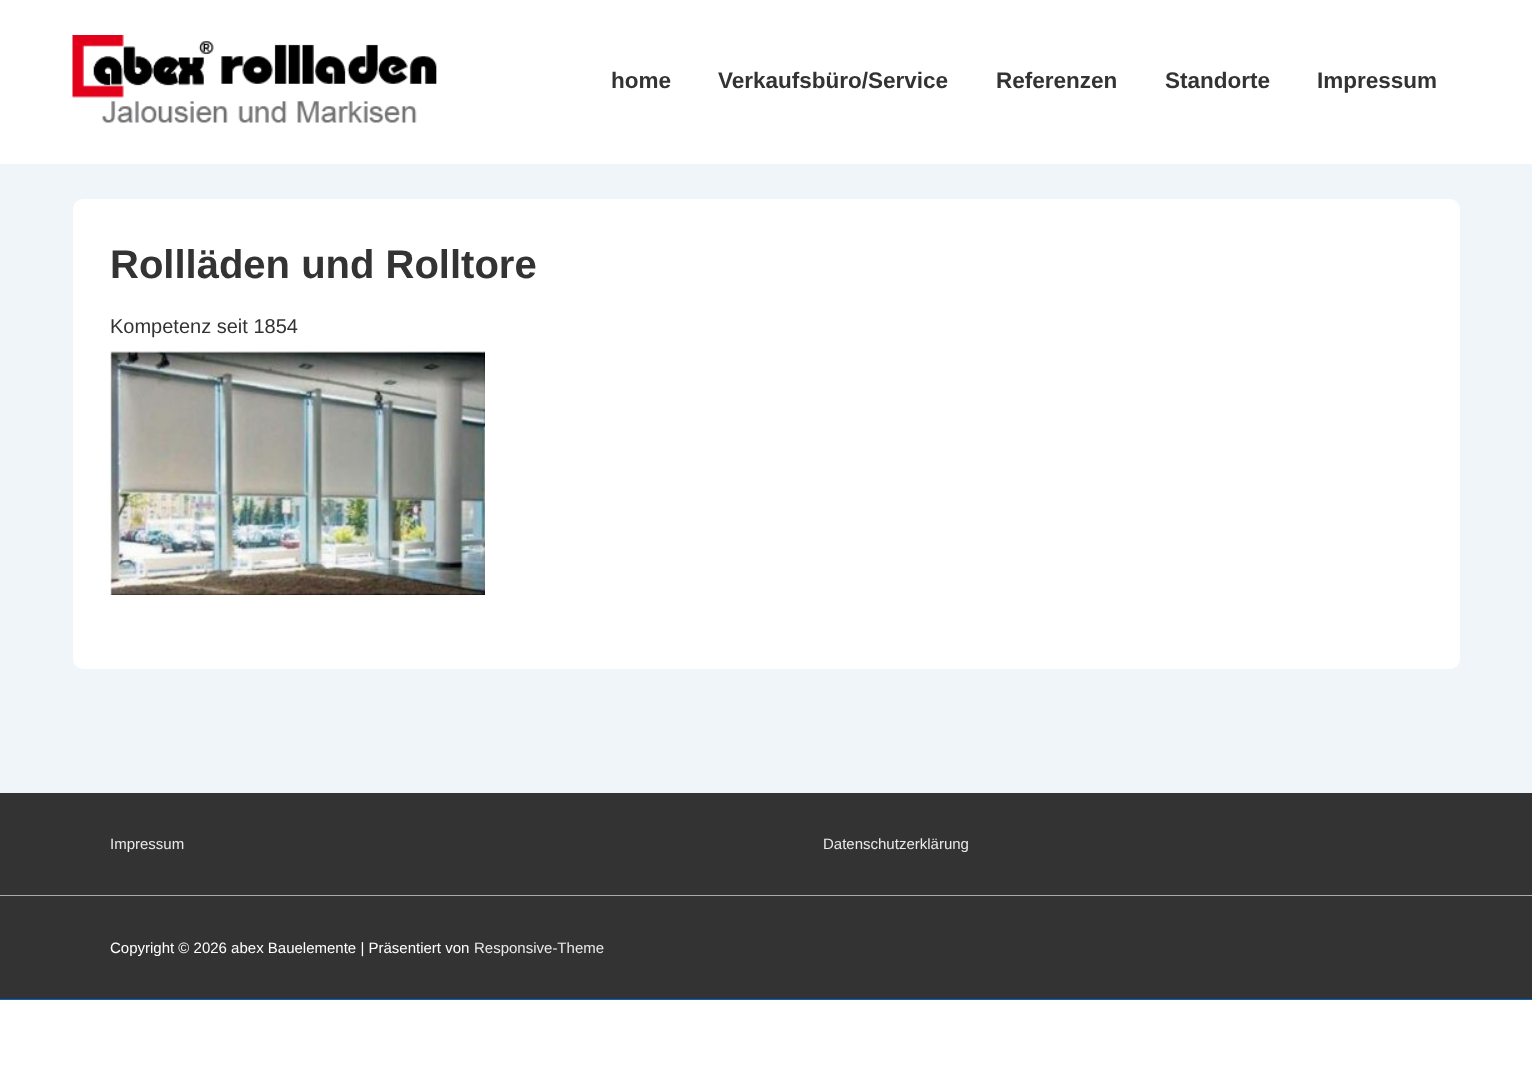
<!DOCTYPE html>
<meta charset="utf-8">
<style>body { margin: 0 } canvas { display: block }</style>
<canvas id="canvas" width="1532" height="1087"></canvas>
<img id="img1" src="img_01.png" hidden>
<img id="img2" src="img_02.png" hidden>
<script>
window.onload = function () {
	const canvas = document.getElementById("canvas");
	const ctx = canvas.getContext("2d");
	ctx.miterLimit = 4;
	ctx.fontKerning = "normal";
	function txt(s, x, y) {
		ctx.fillText(s, x, y);
	}
	function fill(x, y, w, h) {
		ctx.fillRect(x, y, w, h);
	}
	function round(x, y, w, h, r) {
		ctx.beginPath();
		ctx.roundRect(x, y, w, h, r);
		ctx.fill();
	}
	function img(id, x, y, w, h) {
		ctx.drawImage(document.getElementById(id), x, y, w, h);
	}

	ctx.fillStyle = "#F0F5FA";
	fill(0, 0, 1532, 1087);
	ctx.fillStyle = "#FFFFFF";
	fill(0, 0, 1532, 164);
	img("img1", 72, 35, 365, 88);
	round(73, 199, 1387, 470, 10);
	img("img2", 110, 351, 375, 244);
	ctx.fillStyle = "#333333";
	fill(0, 793, 1532, 206);
	ctx.fillStyle = "#AAAAAA";
	fill(0, 895, 1532, 1);
	ctx.fillStyle = "#FFFFFF";
	fill(0, 1000, 1532, 87);
	ctx.fillStyle = "#0066CC";
	fill(0, 999, 1532, 1);
	ctx.font = "bold 22.5px Liberation Sans";
	ctx.fillStyle = "#333333";
	txt("home", 611, 88);
	txt("Verkaufsbüro/Service", 718, 88);
	txt("Referenzen", 996, 88);
	txt("Standorte", 1165, 88);
	txt("Impressum", 1317, 88);
	ctx.font = "bold 40px Liberation Sans";
	txt("Rollläden und Rolltore", 110, 278);
	ctx.font = "20px Liberation Sans";
	txt("Kompetenz seit 1854", 110, 333);
	ctx.font = "15px Liberation Sans";
	ctx.fillStyle = "#EAEAEA";
	txt("Impressum", 110, 849);
	txt("Datenschutzerklärung", 823, 849);
	ctx.fillStyle = "#FFFFFF";
	txt("Copyright © 2026 abex Bauelemente | Präsentiert von", 110, 953);
	ctx.fillStyle = "#EAEAEA";
	txt("Responsive-Theme", 474, 953);
};
</script>
